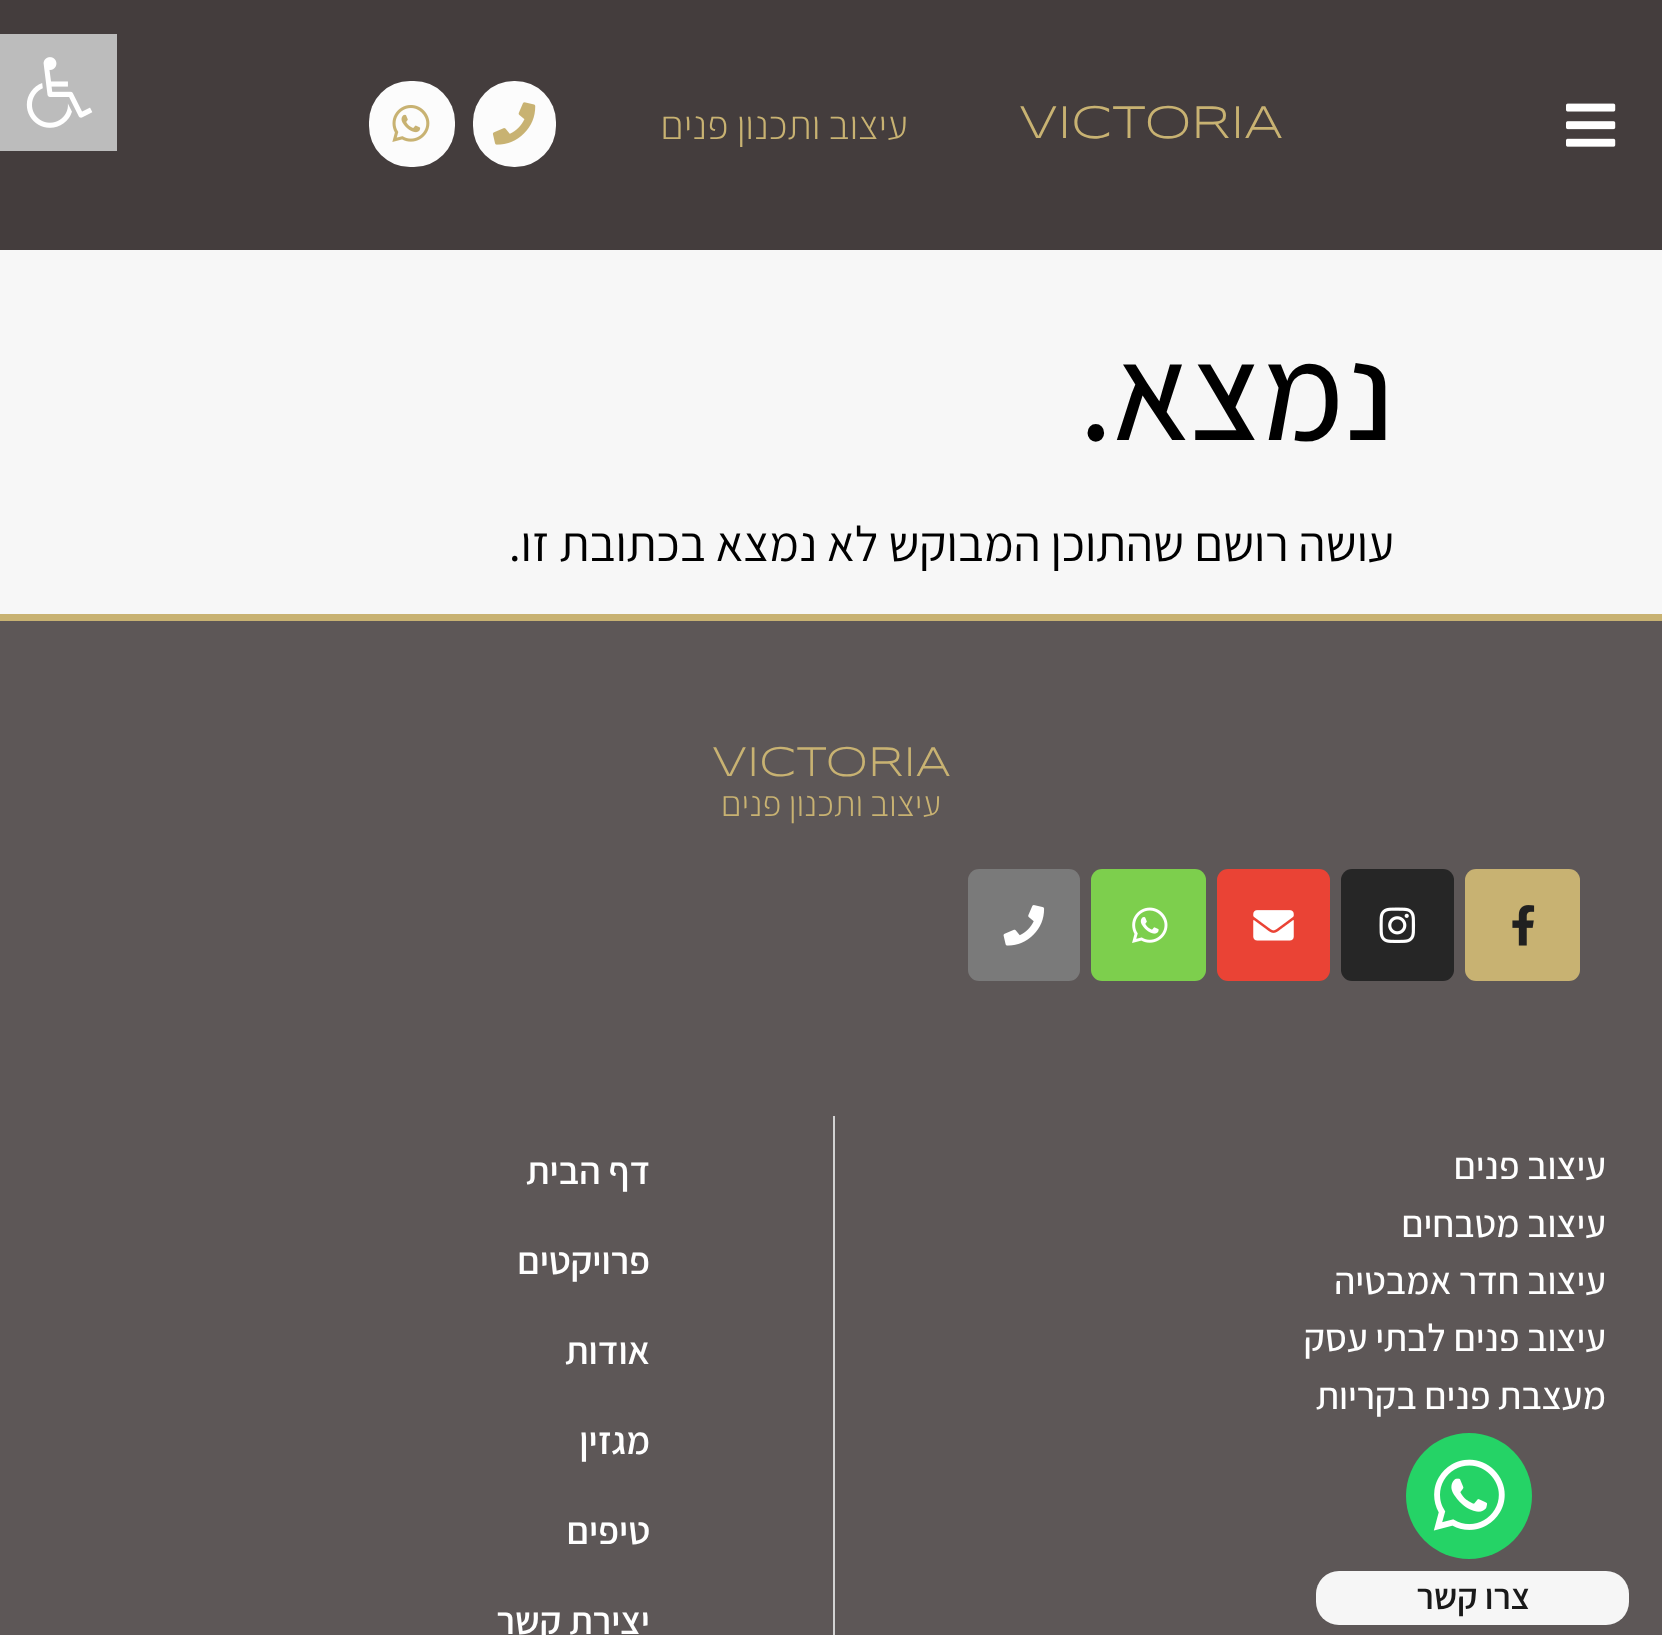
<!DOCTYPE html>
<meta charset="utf-8">
<style>body { margin: 0 } canvas { display: block }</style>
<canvas id="canvas" width="1662" height="1635"></canvas>
<img id="img1" src="img_01.png" hidden>
<img id="img2" src="img_02.png" hidden>
<img id="img3" src="img_03.png" hidden>
<img id="img4" src="img_04.png" hidden>
<img id="img5" src="img_05.png" hidden>
<img id="img6" src="img_06.png" hidden>
<img id="img7" src="img_07.png" hidden>
<img id="img8" src="img_08.png" hidden>
<img id="img9" src="img_09.png" hidden>
<img id="img10" src="img_10.png" hidden>
<script>
window.onload = function () {
	const canvas = document.getElementById("canvas");
	const ctx = canvas.getContext("2d");
	ctx.miterLimit = 4;
	ctx.fontKerning = "normal";
	function txt(s, x, y) {
		ctx.fillText(s, x, y);
	}
	function fill(x, y, w, h) {
		ctx.fillRect(x, y, w, h);
	}
	function round(x, y, w, h, r) {
		ctx.beginPath();
		ctx.roundRect(x, y, w, h, r);
		ctx.fill();
	}
	function img(id, x, y, w, h) {
		ctx.drawImage(document.getElementById(id), x, y, w, h);
	}

	ctx.fillStyle = "#F7F7F7";
	fill(0, 0, 1662, 1635);
	ctx.fillStyle = "#443D3D";
	fill(0, 0, 1662, 250);
	img("img1", 1566, 103, 50, 44);
	ctx.fillStyle = "#FCFCFC";
	round(473, 81, 83, 86, 41);
	img("img2", 492, 102, 44, 43);
	round(369, 81, 86, 86, 41);
	img("img3", 392, 105, 38, 37);
	ctx.fillStyle = "#BCBCBC";
	fill(0, 34, 117, 117);
	img("img4", 26, 57, 67, 71);
	ctx.fillStyle = "#5D5757";
	fill(0, 621, 1662, 1014);
	ctx.fillStyle = "#C8B272";
	fill(0, 614, 1662, 7);
	round(1465, 869, 115, 112, 11);
	img("img5", 1512, 905, 23, 41);
	ctx.fillStyle = "#262626";
	round(1341, 869, 113, 112, 11);
	img("img6", 1379, 907, 37, 36);
	ctx.fillStyle = "#EA4335";
	round(1217, 869, 113, 112, 11);
	img("img7", 1253, 910, 41, 31);
	ctx.fillStyle = "#7DCF4D";
	round(1091, 869, 115, 112, 11);
	img("img8", 1132, 907, 36, 36);
	ctx.fillStyle = "#7A7A7A";
	round(968, 869, 112, 112, 11);
	img("img9", 1003, 905, 42, 41);
	ctx.fillStyle = "#D2D2D2";
	fill(833, 1116, 2, 519);
	ctx.fillStyle = "#25D366";
	ctx.beginPath();
	ctx.arc(1469, 1496, 63, 0, Math.PI * 2);
	ctx.fill();
	img("img10", 1433, 1459, 72, 72);
	ctx.fillStyle = "#F6F6F6";
	round(1316, 1571, 313, 54, 23);
	ctx.font = "47.25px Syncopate";
	ctx.fillStyle = "#C8B272";
	txt("VICTORIA", 1019, 138);
	ctx.direction = "rtl";
	ctx.font = "300 40.5px Assistant";
	txt("עיצוב ותכנון פנים", 908, 139);
	ctx.font = "500 135px Assistant";
	ctx.fillStyle = "#000000";
	txt("נמצא.", 1394, 440);
	ctx.font = "49.5px Assistant";
	txt("עושה רושם שהתוכן המבוקש לא נמצא בכתובת זו.", 1394, 561);
	ctx.direction = "ltr";
	ctx.font = "42.75px Syncopate";
	ctx.fillStyle = "#C8B272";
	txt("VICTORIA", 712, 776);
	ctx.direction = "rtl";
	ctx.font = "300 36px Assistant";
	txt("עיצוב ותכנון פנים", 941, 816);
	ctx.font = "500 38.25px Assistant";
	ctx.fillStyle = "#FFFFFF";
	txt("עיצוב פנים", 1606, 1179);
	txt("עיצוב מטבחים", 1606, 1237);
	txt("עיצוב חדר אמבטיה", 1606, 1294);
	txt("עיצוב פנים לבתי עסק", 1606, 1351);
	txt("מעצבת פנים בקריות", 1606, 1409);
	ctx.font = "600 38.25px Assistant";
	txt("דף הבית", 650, 1184);
	txt("פרויקטים", 650, 1274);
	txt("אודות", 650, 1364);
	txt("מגזין", 650, 1454);
	txt("טיפים", 650, 1544);
	txt("יצירת קשר", 650, 1634);
	ctx.font = "600 36px Assistant";
	ctx.fillStyle = "#191919";
	txt("צרו קשר", 1530, 1609);
};
</script>
